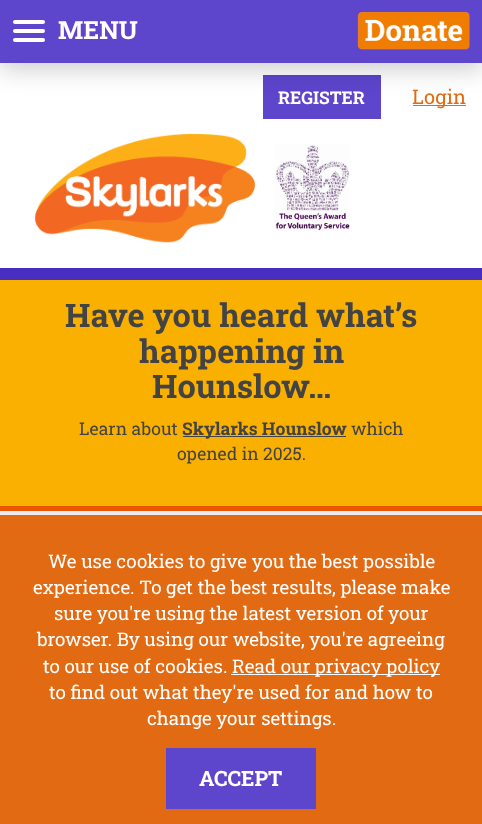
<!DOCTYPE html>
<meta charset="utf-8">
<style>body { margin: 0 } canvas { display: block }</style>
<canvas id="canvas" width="482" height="824"></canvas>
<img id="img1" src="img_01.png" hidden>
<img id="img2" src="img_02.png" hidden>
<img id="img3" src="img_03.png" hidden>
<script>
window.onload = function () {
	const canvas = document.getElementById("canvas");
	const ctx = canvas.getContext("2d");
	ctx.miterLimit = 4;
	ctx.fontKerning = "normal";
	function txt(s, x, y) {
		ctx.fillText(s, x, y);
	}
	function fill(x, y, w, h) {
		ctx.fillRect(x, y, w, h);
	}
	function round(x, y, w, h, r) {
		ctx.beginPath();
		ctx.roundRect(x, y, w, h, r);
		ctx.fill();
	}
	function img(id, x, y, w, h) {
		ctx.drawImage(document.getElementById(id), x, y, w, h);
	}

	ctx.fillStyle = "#FFFFFF";
	fill(0, 0, 482, 824);
	ctx.fillStyle = "#5D45CC";
	fill(263, 75, 118, 44);
	ctx.fillStyle = "#E26A12";
	fill(413, 105, 53, 1);
	ctx.fillStyle = "rgba(0, 0, 0, 0.2)";
	ctx.filter = "blur(12.5px)";
	ctx.beginPath();
	ctx.rect(0, 6, 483, 63);
	ctx.fill();
	ctx.filter = "none";
	ctx.fillStyle = "#5D45CC";
	fill(0, 0, 482, 63);
	ctx.fillStyle = "#FFFFFF";
	round(13, 20, 32, 4, 2);
	round(13, 29, 32, 4, 2);
	round(13, 38, 32, 4, 2);
	ctx.fillStyle = "#492FC0";
	fill(0, 268, 482, 12);
	img("img1", 357, 12, 113, 38);
	img("img2", 34, 133, 222, 110);
	img("img3", 275, 144, 75, 87);
	ctx.fillStyle = "#F9B001";
	fill(0, 280, 482, 226);
	ctx.fillStyle = "#EA5600";
	fill(0, 506, 482, 5);
	ctx.fillStyle = "#434343";
	fill(183, 436, 163, 1);
	ctx.fillStyle = "#ECECF2";
	fill(0, 511, 482, 4);
	ctx.fillStyle = "#E26A12";
	fill(0, 515, 482, 309);
	ctx.fillStyle = "#FFFFFF";
	fill(231, 674, 209, 1);
	ctx.fillStyle = "#5D45CC";
	fill(166, 748, 150, 61);
	ctx.font = "bold 25px Roboto Slab";
	ctx.fillStyle = "#FFFFFF";
	txt("MENU", 58, 39);
	ctx.font = "bold 17.5px Roboto Slab";
	txt("REGISTER", 278, 104);
	ctx.font = "20px Roboto Slab";
	ctx.fillStyle = "#E26A12";
	txt("Login", 412, 104);
	ctx.font = "bold 32.5px Roboto Slab";
	ctx.fillStyle = "#434343";
	txt("Have you heard what’s", 65, 327);
	txt("happening in", 139, 363);
	txt("Hounslow…", 152, 398);
	ctx.font = "17.5px Roboto Slab";
	txt("Learn about", 79, 435);
	ctx.font = "bold 17.5px Roboto Slab";
	txt("Skylarks Hounslow", 182, 435);
	ctx.font = "17.5px Roboto Slab";
	txt("which", 351, 435);
	txt("opened in 2025.", 177, 460);
	ctx.font = "18.75px Roboto Slab";
	ctx.fillStyle = "#FFFFFF";
	txt("We use cookies to give you the best possible", 48, 568);
	txt("experience. To get the best results, please make", 33, 594);
	txt("sure you're using the latest version of your", 54, 620);
	txt("browser. By using our website, you're agreeing", 37, 646);
	txt("to our use of cookies.", 43, 673);
	txt("Read our privacy policy", 232, 673);
	txt("to find out what they're used for and how to", 49, 699);
	txt("change your settings.", 147, 725);
	ctx.font = "bold 21px Roboto Slab";
	txt("ACCEPT", 199, 786);
};
</script>
